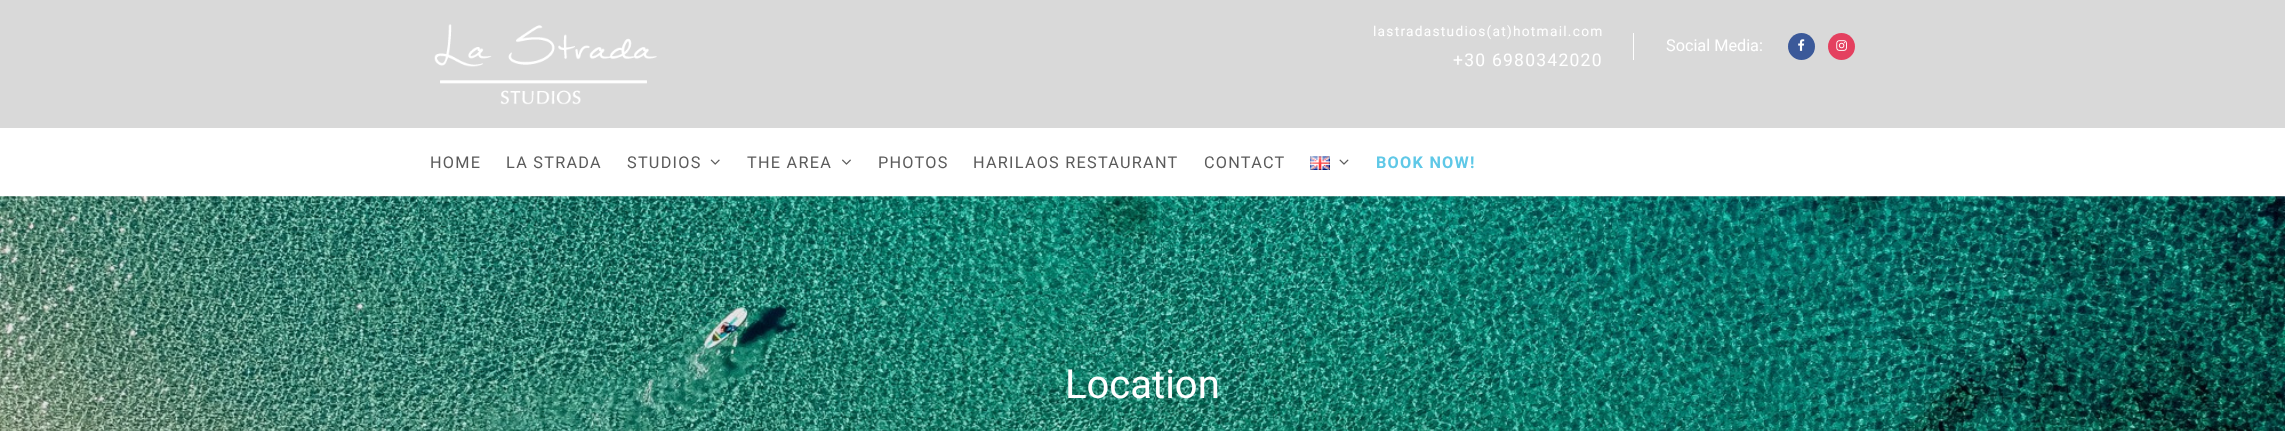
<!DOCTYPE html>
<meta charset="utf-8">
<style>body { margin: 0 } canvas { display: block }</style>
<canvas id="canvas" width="2285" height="431"></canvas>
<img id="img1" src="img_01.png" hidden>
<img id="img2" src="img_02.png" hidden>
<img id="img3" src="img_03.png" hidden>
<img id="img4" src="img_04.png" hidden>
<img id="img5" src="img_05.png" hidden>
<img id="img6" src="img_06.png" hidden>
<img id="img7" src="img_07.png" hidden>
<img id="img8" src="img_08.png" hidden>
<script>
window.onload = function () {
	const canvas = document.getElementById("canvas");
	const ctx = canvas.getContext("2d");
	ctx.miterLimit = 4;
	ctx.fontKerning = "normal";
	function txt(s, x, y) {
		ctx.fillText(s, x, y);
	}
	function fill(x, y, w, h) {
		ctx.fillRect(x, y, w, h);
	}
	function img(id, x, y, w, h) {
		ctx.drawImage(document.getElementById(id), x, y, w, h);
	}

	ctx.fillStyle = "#FFFFFF";
	fill(0, 0, 2285, 431);
	ctx.fillStyle = "#D9D9D9";
	fill(0, 0, 2285, 128);
	img("img1", 434, 24, 223, 81);
	ctx.fillStyle = "#FFFFFF";
	fill(1633, 33, 1, 27);
	ctx.fillStyle = "#3B5999";
	ctx.beginPath();
	ctx.arc(1801.5, 46.5, 13.5, 0, Math.PI * 2);
	ctx.fill();
	img("img2", 1798, 39, 7, 12);
	ctx.fillStyle = "#E4405F";
	ctx.beginPath();
	ctx.arc(1841.5, 46.5, 13.5, 0, Math.PI * 2);
	ctx.fill();
	img("img3", 1836, 40, 11, 11);
	img("img4", 710, 159, 10, 6);
	img("img5", 842, 159, 9, 6);
	img("img6", 1310, 156, 20, 14);
	img("img7", 1339, 159, 10, 6);
	img("img8", 0, 196, 2285, 235);
	ctx.letterSpacing = "1.25px";
	ctx.font = "13.75px Roboto";
	ctx.fillStyle = "#FFFFFF";
	txt("lastradastudios(at)hotmail.com", 1373, 36);
	ctx.font = "17.5px Roboto";
	txt("+30 6980342020", 1453, 66);
	ctx.letterSpacing = "0px";
	ctx.font = "16.25px Roboto";
	txt("Social Media:", 1666, 51);
	ctx.letterSpacing = "1.25px";
	ctx.fillStyle = "#5B5B5B";
	txt("HOME", 430, 168);
	txt("LA STRADA", 506, 168);
	txt("STUDIOS", 627, 168);
	txt("THE AREA", 747, 168);
	txt("PHOTOS", 878, 168);
	txt("HARILAOS RESTAURANT", 973, 168);
	txt("CONTACT", 1204, 168);
	ctx.font = "bold 16.25px Roboto";
	ctx.fillStyle = "#5FC8E7";
	txt("BOOK NOW!", 1376, 168);
	ctx.letterSpacing = "0px";
	ctx.font = "40px Roboto";
	ctx.fillStyle = "#FFFFFF";
	txt("Location", 1065, 398);
};
</script>
